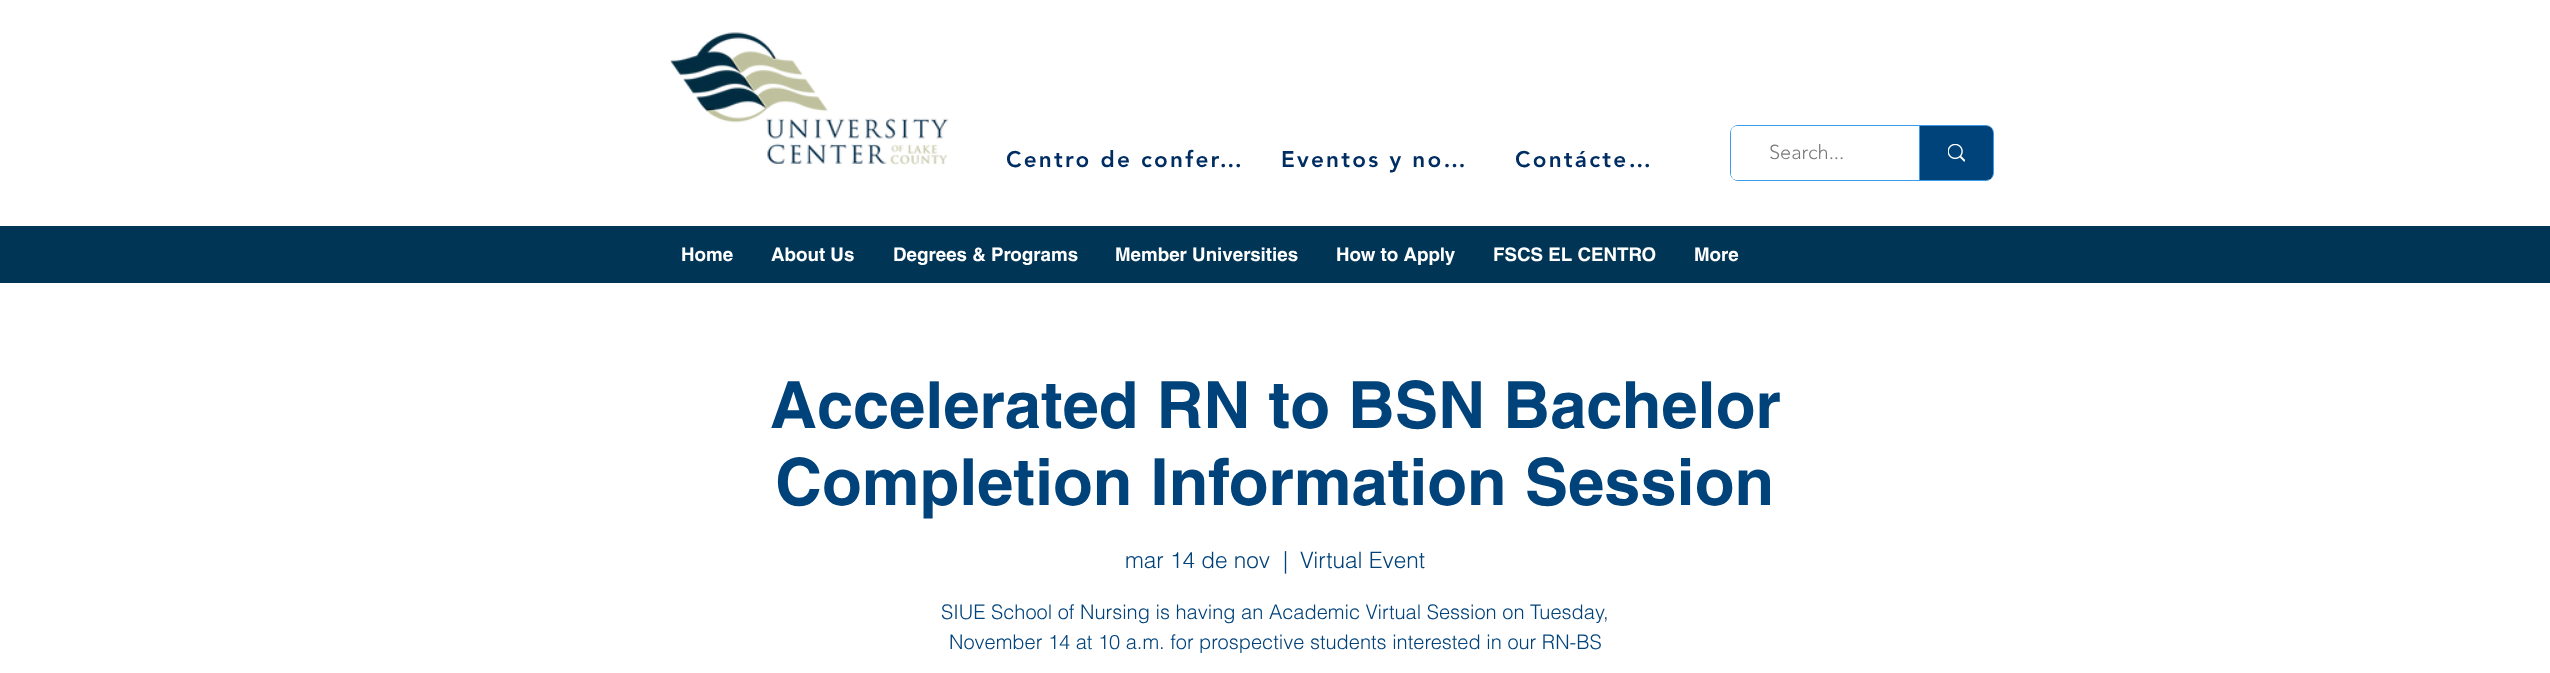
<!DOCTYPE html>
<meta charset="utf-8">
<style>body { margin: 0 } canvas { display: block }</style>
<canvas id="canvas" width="2550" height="673"></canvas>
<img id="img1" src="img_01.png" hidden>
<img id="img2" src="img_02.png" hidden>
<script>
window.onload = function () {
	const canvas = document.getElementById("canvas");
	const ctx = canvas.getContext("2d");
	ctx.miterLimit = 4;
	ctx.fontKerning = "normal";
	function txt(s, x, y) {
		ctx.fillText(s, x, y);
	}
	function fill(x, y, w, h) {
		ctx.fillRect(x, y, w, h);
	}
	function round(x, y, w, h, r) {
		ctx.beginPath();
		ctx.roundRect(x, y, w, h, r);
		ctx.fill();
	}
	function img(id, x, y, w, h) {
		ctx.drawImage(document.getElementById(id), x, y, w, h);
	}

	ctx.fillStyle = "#FFFFFF";
	fill(0, 0, 2550, 673);
	img("img1", 670, 32, 279, 133);
	ctx.beginPath();
	ctx.roundRect(1730.5, 125.5, 263, 55, 7.5);
	ctx.strokeStyle = "#3D9BE9";
	ctx.stroke();
	round(1731, 126, 262, 54, 6);
	ctx.fillStyle = "#00427A";
	ctx.beginPath();
	ctx.roundRect(1919, 126, 74, 54, [0, 6, 6, 0]);
	ctx.fill();
	ctx.fillStyle = "#3D9BE9";
	fill(1919, 126, 1, 54);
	img("img2", 1948, 144, 17, 18);
	ctx.fillStyle = "#003556";
	fill(0, 226, 2550, 57);
	ctx.letterSpacing = "2.25px";
	ctx.font = "900 22.5px 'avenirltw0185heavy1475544'";
	ctx.fillStyle = "#002D62";
	txt("Centro de confer…", 1006, 167);
	txt("Eventos y no…", 1281, 167);
	txt("Contácte…", 1515, 167);
	ctx.letterSpacing = "0px";
	ctx.font = "300 20px 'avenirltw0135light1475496'";
	ctx.fillStyle = "#787878";
	txt("Search...", 1769, 159);
	ctx.font = "bold 18.75px helvetica";
	ctx.fillStyle = "#FFFFFF";
	txt("Home", 681, 261);
	txt("About Us", 771, 261);
	txt("Degrees & Programs", 893, 261);
	txt("Member Universities", 1115, 261);
	txt("How to Apply", 1336, 261);
	txt("FSCS EL CENTRO", 1493, 261);
	txt("More", 1694, 261);
	ctx.font = "bold 65px helvetica";
	ctx.fillStyle = "#00427A";
	txt("Accelerated RN to BSN Bachelor", 770, 428);
	txt("Completion Information Session", 775, 505);
	ctx.font = "300 22.5px helvetica";
	txt("mar 14 de nov", 1125, 568);
	txt("|", 1283, 568);
	txt("Virtual Event", 1300, 568);
	ctx.font = "300 20px helvetica";
	txt("SIUE School of Nursing is having an Academic Virtual Session on Tuesday,", 941, 619);
	txt("November 14 at 10 a.m. for prospective students interested in our RN-BS", 949, 649);
};
</script>
